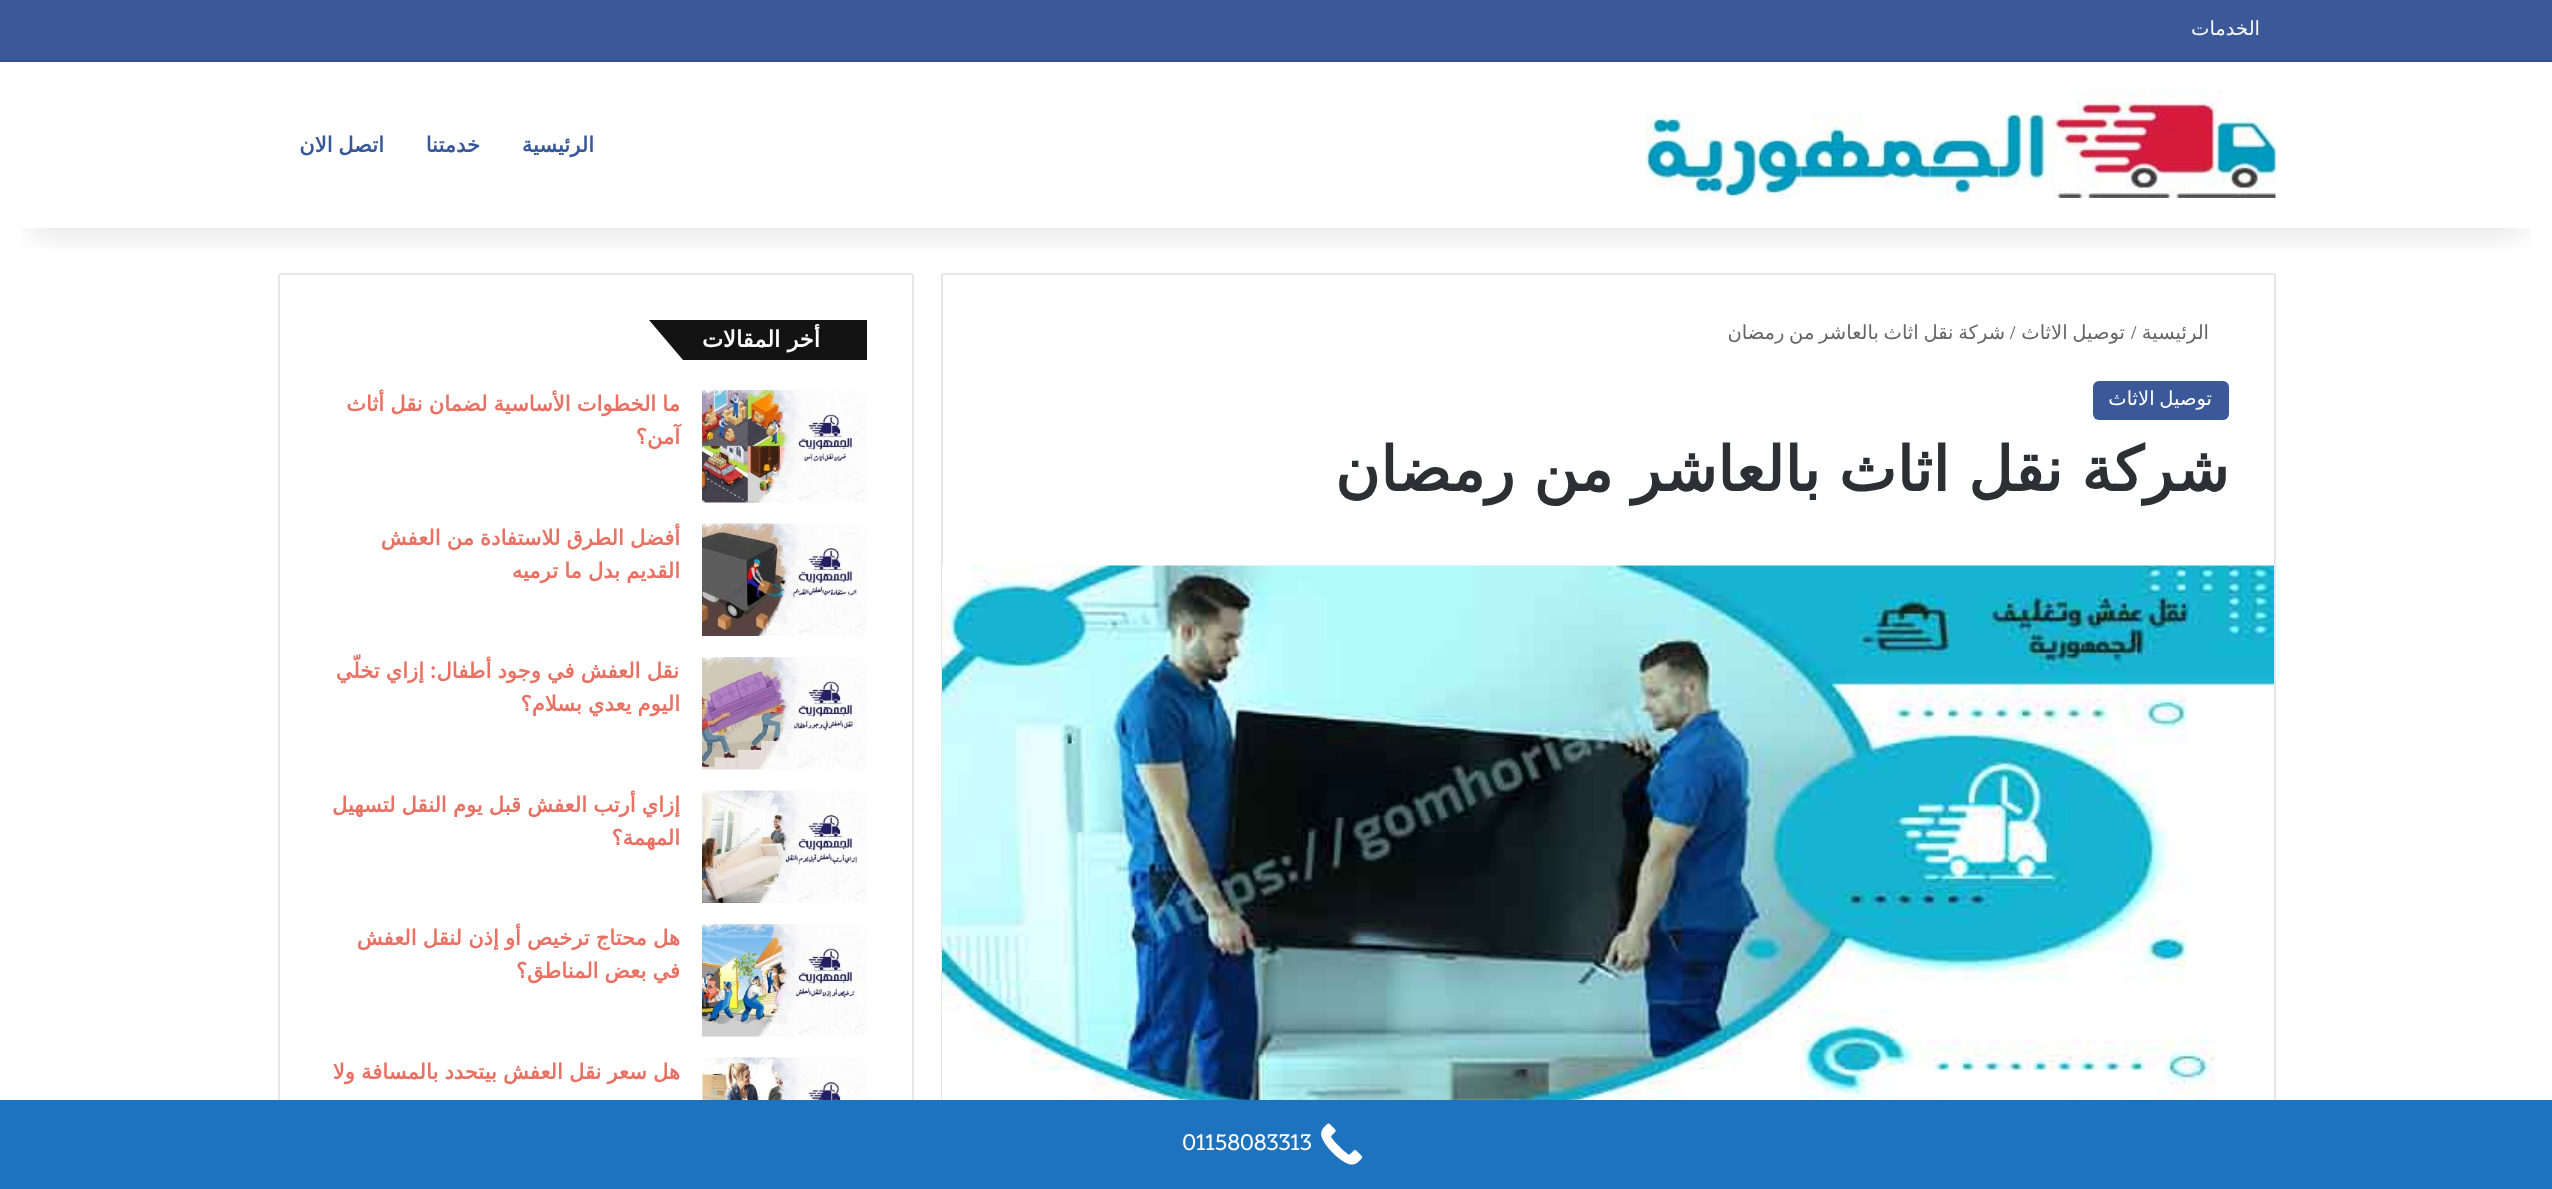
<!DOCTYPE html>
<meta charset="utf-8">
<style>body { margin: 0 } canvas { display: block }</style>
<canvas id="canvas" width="2552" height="1189"></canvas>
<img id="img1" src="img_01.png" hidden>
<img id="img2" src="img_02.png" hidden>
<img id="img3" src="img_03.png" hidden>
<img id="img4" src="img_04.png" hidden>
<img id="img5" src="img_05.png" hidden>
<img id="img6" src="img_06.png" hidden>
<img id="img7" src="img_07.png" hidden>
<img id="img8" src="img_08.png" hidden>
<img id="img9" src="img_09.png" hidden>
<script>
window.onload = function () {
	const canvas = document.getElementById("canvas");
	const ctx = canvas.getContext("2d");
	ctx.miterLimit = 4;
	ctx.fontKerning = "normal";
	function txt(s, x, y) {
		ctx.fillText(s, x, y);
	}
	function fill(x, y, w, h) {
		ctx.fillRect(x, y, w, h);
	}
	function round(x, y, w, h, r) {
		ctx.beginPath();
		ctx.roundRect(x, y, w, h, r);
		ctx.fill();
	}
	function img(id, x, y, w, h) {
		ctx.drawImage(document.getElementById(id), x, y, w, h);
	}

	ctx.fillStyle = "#FFFFFF";
	fill(0, 0, 2552, 1189);
	ctx.beginPath();
	ctx.roundRect(942, 274, 1333, 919, 2);
	ctx.strokeStyle = "#E6E6E6";
	ctx.lineWidth = 2;
	ctx.stroke();
	ctx.beginPath();
	ctx.roundRect(279, 274, 634, 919, 2);
	ctx.stroke();
	ctx.save();
	ctx.beginPath();
	ctx.rect(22, 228, 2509, 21);
	ctx.clip();
	ctx.fillStyle = "rgba(0, 0, 0, 0.1)";
	ctx.filter = "blur(15px)";
	ctx.beginPath();
	ctx.rect(30, 68, 2493, 168);
	ctx.fill();
	ctx.filter = "none";
	ctx.restore();
	ctx.fillStyle = "#3B5998";
	fill(0, 0, 2552, 60);
	ctx.fillStyle = "#355089";
	fill(0, 60, 2552, 2);
	img("img1", 1645, 90, 631, 108);
	ctx.fillStyle = "#3B5998";
	round(2093, 381, 136, 39, 6);
	img("img2", 942, 565, 1332, 535);
	ctx.fillStyle = "#131313";
	fill(775, 320, 92, 40);
	ctx.beginPath();
	ctx.moveTo(649, 320);
	ctx.lineTo(775, 320);
	ctx.lineTo(809, 360);
	ctx.lineTo(683, 360);
	ctx.closePath();
	ctx.fill();
	img("img3", 702, 390, 165, 113);
	img("img4", 702, 523, 165, 113);
	img("img5", 702, 657, 165, 113);
	img("img6", 702, 790, 165, 113);
	img("img7", 702, 924, 165, 113);
	img("img8", 702, 1057, 165, 43);
	ctx.fillStyle = "#1E73BE";
	fill(0, 1100, 2552, 89);
	img("img9", 1321, 1123, 42, 42);
	ctx.direction = "rtl";
	ctx.font = "19.5px DejaVu Sans";
	ctx.fillStyle = "#F6F7F9";
	txt("الخدمات", 2260, 35);
	ctx.font = "bold 21px DejaVu Sans";
	ctx.fillStyle = "#365899";
	txt("الرئيسية", 594, 152);
	txt("خدمتنا", 480, 152);
	ctx.wordSpacing = "-1px";
	txt("اتصل الان", 384, 152);
	ctx.wordSpacing = "0px";
	ctx.font = "19.5px DejaVu Sans";
	ctx.fillStyle = "#666666";
	txt("الرئيسية", 2209, 339);
	ctx.direction = "ltr";
	ctx.font = "19.5px Scope One";
	txt("/", 2130, 339);
	ctx.wordSpacing = "-1.5px";
	ctx.direction = "rtl";
	ctx.font = "19.5px DejaVu Sans";
	txt("توصيل الاثاث", 2125, 339);
	ctx.wordSpacing = "0px";
	ctx.direction = "ltr";
	ctx.font = "19.5px Scope One";
	txt("/", 2009, 339);
	ctx.wordSpacing = "-1.5px";
	ctx.direction = "rtl";
	ctx.font = "19.5px DejaVu Sans";
	txt("شركة نقل اثاث بالعاشر من رمضان", 2005, 339);
	ctx.fillStyle = "#FFFFFF";
	txt("توصيل الاثاث", 2212, 405);
	ctx.wordSpacing = "-1px";
	ctx.font = "bold 61.5px DejaVu Sans";
	ctx.fillStyle = "#2C2F34";
	txt("شركة نقل اثاث بالعاشر من رمضان", 2229, 491);
	ctx.wordSpacing = "0px";
	ctx.font = "bold 22.5px DejaVu Sans";
	ctx.fillStyle = "#FFFFFF";
	txt("أخر المقالات", 820, 347);
	ctx.wordSpacing = "-0.5px";
	ctx.font = "bold 21px DejaVu Sans";
	ctx.fillStyle = "#E87163";
	txt("ما الخطوات الأساسية لضمان نقل أثاث", 680, 411);
	ctx.wordSpacing = "0px";
	txt("آمن؟", 680, 444);
	ctx.wordSpacing = "-0.5px";
	txt("أفضل الطرق للاستفادة من العفش", 680, 545);
	txt("القديم بدل ما ترميه", 680, 578);
	txt("نقل العفش في وجود أطفال", 679, 678);
	ctx.wordSpacing = "0px";
	ctx.font = "bold 21px ABeeZee";
	txt(":", 436, 678);
	ctx.wordSpacing = "-0.5px";
	ctx.font = "bold 21px DejaVu Sans";
	txt("إزاي تخلّي", 424, 678);
	txt("اليوم يعدي بسلام؟", 680, 711);
	txt("إزاي أرتب العفش قبل يوم النقل لتسهيل", 680, 812);
	ctx.wordSpacing = "0px";
	txt("المهمة؟", 680, 845);
	ctx.wordSpacing = "-0.5px";
	txt("هل محتاج ترخيص أو إذن لنقل العفش", 680, 945);
	txt("في بعض المناطق؟", 680, 978);
	txt("هل سعر نقل العفش بيتحدد بالمسافة ولا", 680, 1079);
	ctx.wordSpacing = "0px";
	ctx.direction = "ltr";
	ctx.font = "bold 23.5px Scope One";
	ctx.fillStyle = "#FFFFFF";
	txt("01158083313", 1182, 1150);
};
</script>
